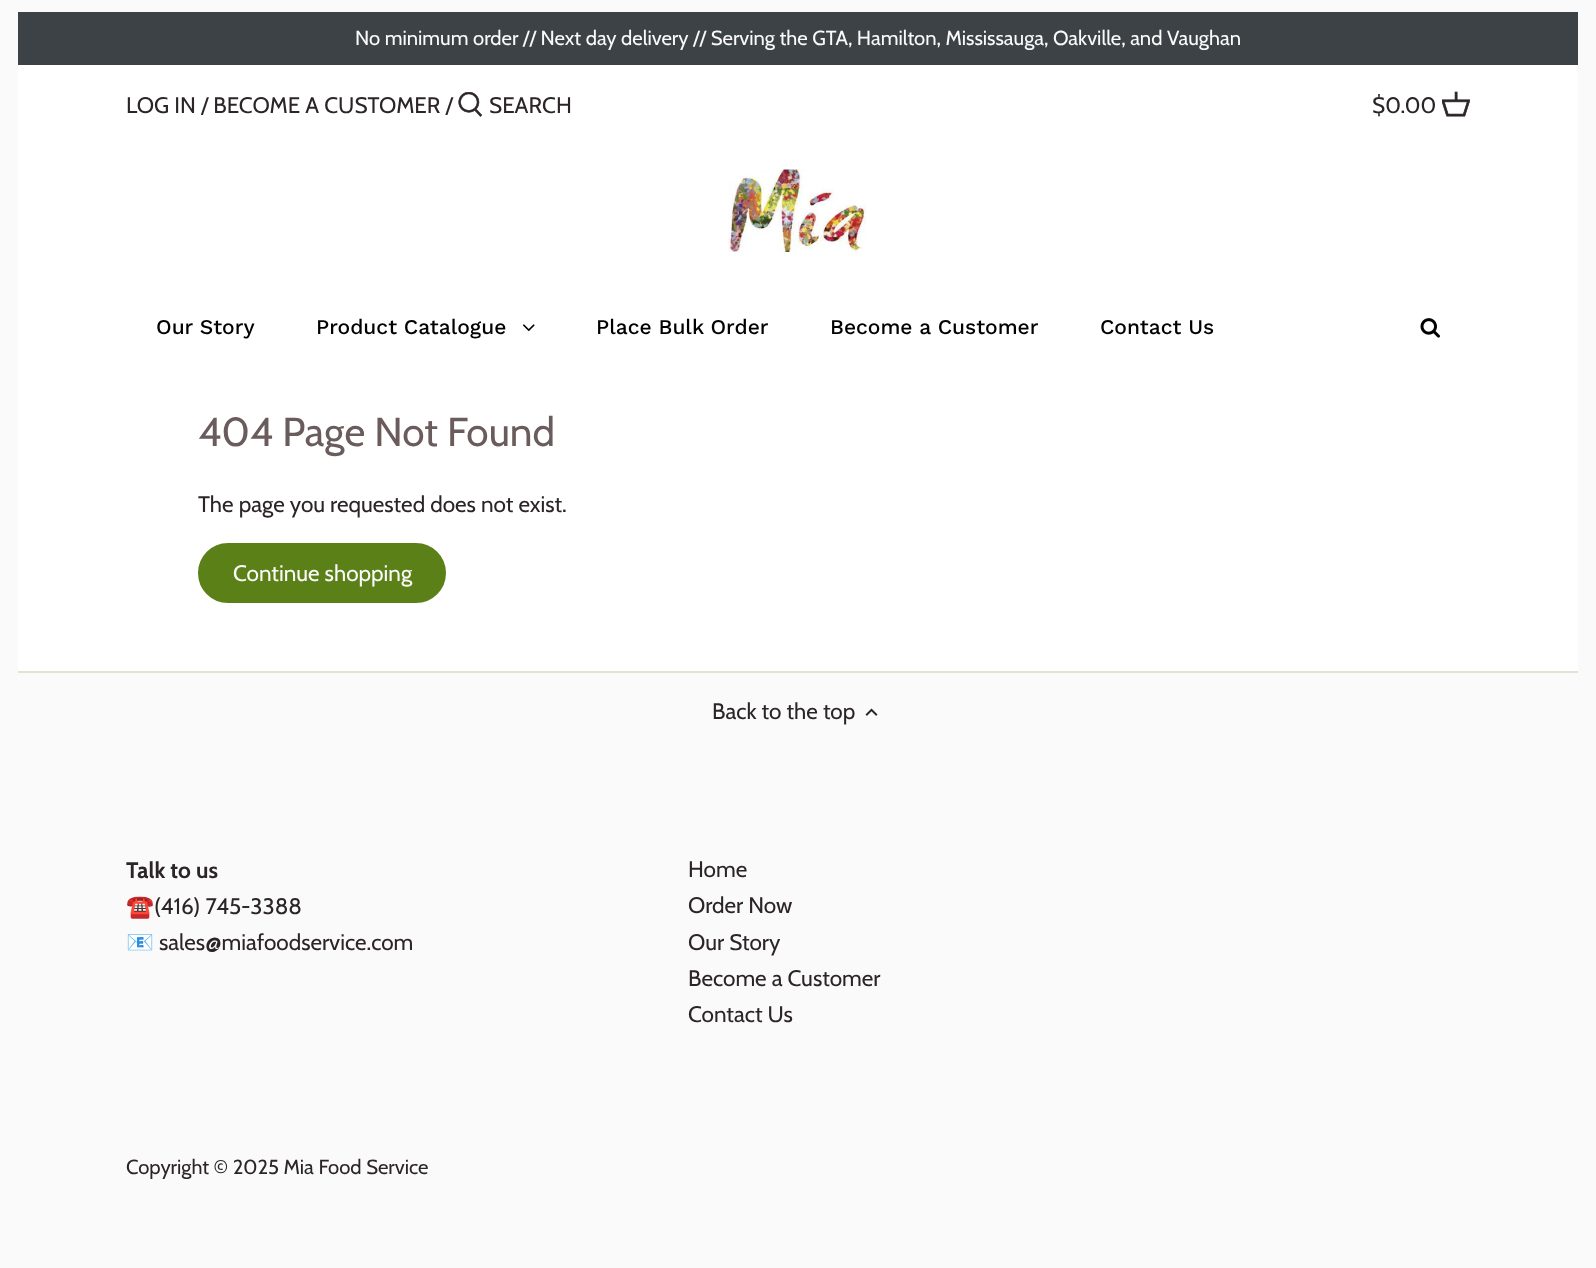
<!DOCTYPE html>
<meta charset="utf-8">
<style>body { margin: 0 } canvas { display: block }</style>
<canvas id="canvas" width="1596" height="1268"></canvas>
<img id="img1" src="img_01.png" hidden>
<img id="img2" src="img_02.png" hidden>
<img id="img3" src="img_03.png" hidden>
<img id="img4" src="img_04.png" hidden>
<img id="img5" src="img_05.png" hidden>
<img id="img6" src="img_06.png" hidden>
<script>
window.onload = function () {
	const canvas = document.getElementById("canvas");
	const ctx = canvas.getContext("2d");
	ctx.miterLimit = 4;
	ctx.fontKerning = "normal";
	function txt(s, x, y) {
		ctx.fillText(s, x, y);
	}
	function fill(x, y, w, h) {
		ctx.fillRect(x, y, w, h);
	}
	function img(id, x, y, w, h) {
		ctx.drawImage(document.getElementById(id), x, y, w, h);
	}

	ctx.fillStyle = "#FAFAFA";
	fill(0, 0, 1596, 1268);
	ctx.fillStyle = "#FFFFFF";
	fill(18, 65, 1560, 606);
	ctx.fillStyle = "#3D4246";
	fill(18, 12, 1560, 53);
	img("img1", 458, 92, 25, 25);
	img("img2", 1442, 91, 28, 26);
	img("img3", 728, 169, 139, 83);
	img("img4", 523, 324, 12, 8);
	img("img5", 1420, 318, 20, 20);
	ctx.fillStyle = "#5C8018";
	ctx.beginPath();
	ctx.roundRect(199.5, 544.5, 245, 57, 28.5);
	ctx.fill();
	ctx.strokeStyle = "#5C8018";
	ctx.lineWidth = 3;
	ctx.stroke();
	ctx.fillStyle = "#E5E2D4";
	fill(18, 671, 1560, 2);
	img("img6", 865, 708, 13, 8);
	ctx.font = "20.25px Cabin";
	ctx.fillStyle = "#FAFAFA";
	txt("No minimum order // Next day delivery // Serving the GTA, Hamilton, Mississauga, Oakville, and Vaughan", 355, 45);
	ctx.font = "22.5px Cabin";
	ctx.fillStyle = "#2C2528";
	txt("LOG IN / BECOME A CUSTOMER /", 126, 113);
	txt("SEARCH", 489, 113);
	txt("$0.00", 1372, 113);
	ctx.font = "500 21px Work Sans";
	ctx.fillStyle = "#000000";
	txt("Our Story", 156, 334);
	txt("Product Catalogue", 316, 334);
	txt("Place Bulk Order", 596, 334);
	txt("Become a Customer", 830, 334);
	txt("Contact Us", 1100, 334);
	ctx.font = "40.5px Cabin";
	ctx.fillStyle = "#6A5B5C";
	txt("404 Page Not Found", 198, 446);
	ctx.font = "22.5px Cabin";
	ctx.fillStyle = "#2C2528";
	txt("The page you requested does not exist.", 198, 512);
	ctx.fillStyle = "#FAFAFA";
	txt("Continue shopping", 233, 581);
	ctx.fillStyle = "#2C2528";
	txt("Back to the top", 712, 719);
	ctx.font = "bold 22.5px Cabin";
	txt("Talk to us", 126, 878);
	ctx.font = "22.5px Noto Color Emoji";
	txt("☎️", 126, 914);
	ctx.font = "22.5px Cabin";
	txt("(416) 745-3388", 154, 914);
	ctx.font = "22.5px Noto Color Emoji";
	txt("📧", 126, 950);
	ctx.font = "22.5px Cabin";
	txt("sales@miafoodservice.com", 159, 950);
	txt("Home", 688, 877);
	txt("Order Now", 688, 913);
	txt("Our Story", 688, 950);
	txt("Become a Customer", 688, 986);
	txt("Contact Us", 688, 1022);
	ctx.font = "20.25px Cabin";
	txt("Copyright © 2025 Mia Food Service", 126, 1174);
};
</script>
